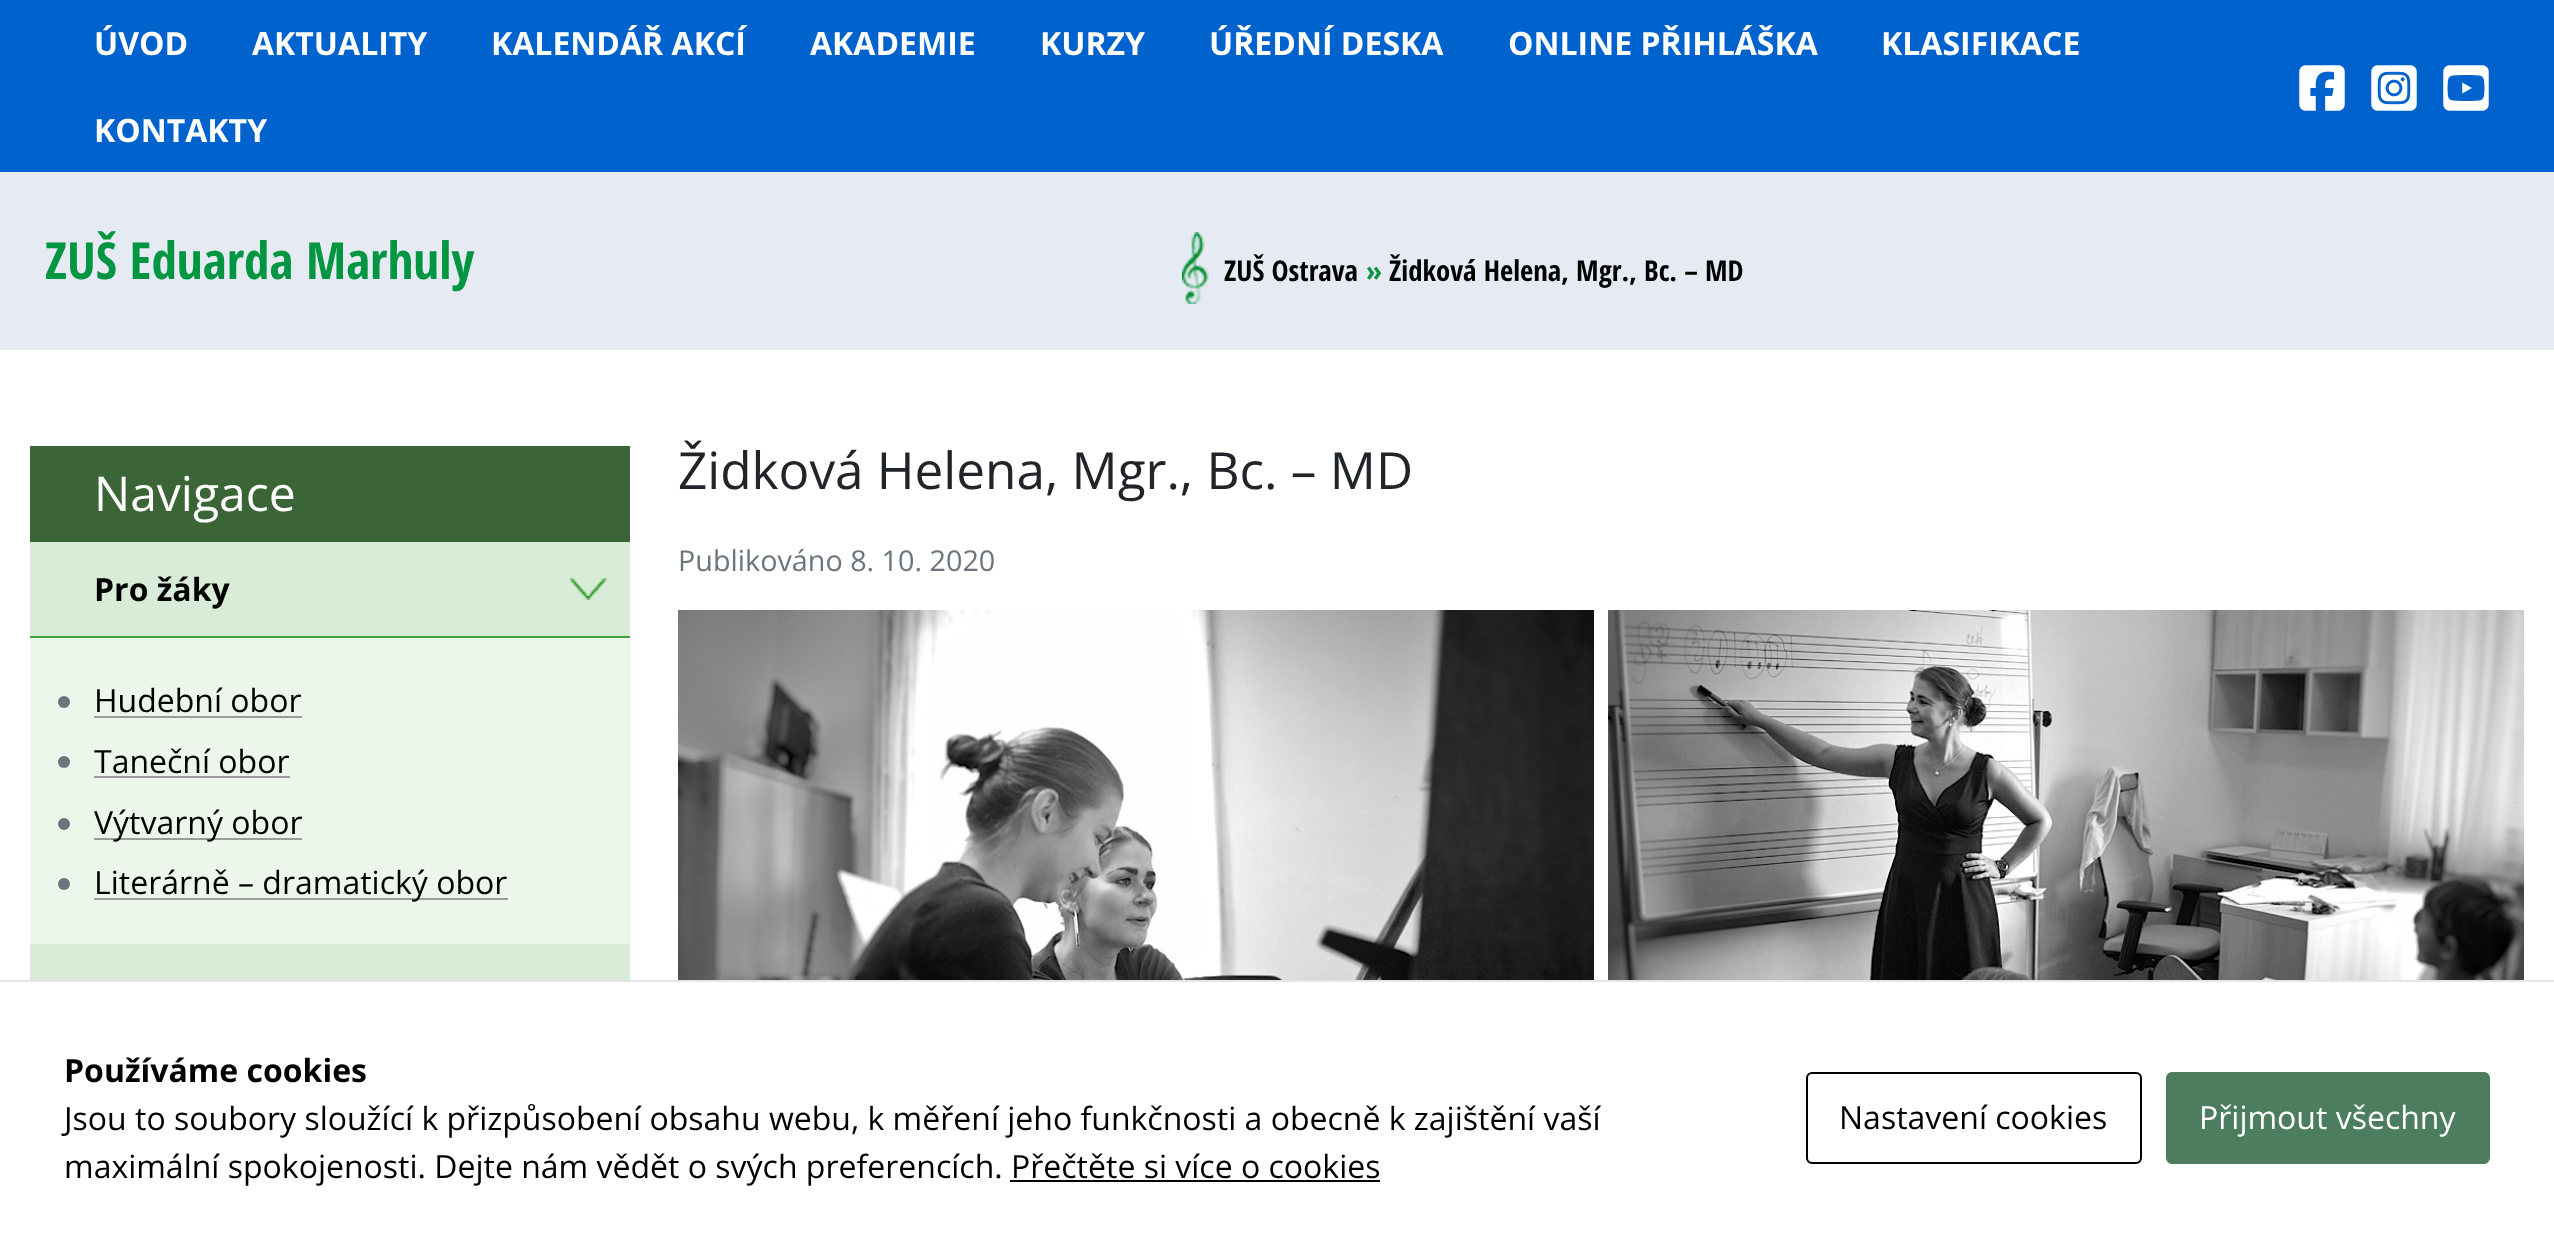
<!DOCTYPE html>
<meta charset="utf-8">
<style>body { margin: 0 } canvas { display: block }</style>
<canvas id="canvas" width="2554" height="1254"></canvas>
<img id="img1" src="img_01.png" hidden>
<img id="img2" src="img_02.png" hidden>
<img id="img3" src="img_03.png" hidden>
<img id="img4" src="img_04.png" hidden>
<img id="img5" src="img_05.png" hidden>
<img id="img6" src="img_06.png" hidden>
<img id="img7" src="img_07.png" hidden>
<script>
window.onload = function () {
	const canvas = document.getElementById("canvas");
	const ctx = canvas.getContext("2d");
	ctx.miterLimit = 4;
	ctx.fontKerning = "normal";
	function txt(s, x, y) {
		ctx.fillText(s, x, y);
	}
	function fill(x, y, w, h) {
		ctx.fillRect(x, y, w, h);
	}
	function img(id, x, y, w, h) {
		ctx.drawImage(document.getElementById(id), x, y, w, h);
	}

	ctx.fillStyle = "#FFFFFF";
	fill(0, 0, 2554, 1254);
	ctx.fillStyle = "#E5EAF3";
	fill(0, 172, 2554, 178);
	ctx.fillStyle = "#0062CC";
	fill(0, 0, 2554, 172);
	img("img1", 2299, 65, 46, 46);
	img("img2", 2371, 65, 46, 46);
	img("img3", 2443, 65, 46, 46);
	img("img4", 1182, 232, 27, 72);
	ctx.fillStyle = "#3C6537";
	fill(30, 446, 600, 96);
	ctx.fillStyle = "#ECF6EA";
	fill(30, 638, 600, 306);
	ctx.fillStyle = "#D9ECD7";
	fill(30, 542, 600, 94);
	img("img5", 570, 578, 37, 22);
	ctx.fillStyle = "#42A23A";
	fill(30, 636, 600, 2);
	ctx.fillStyle = "#6C757D";
	ctx.beginPath();
	ctx.arc(64, 702, 6, 0, Math.PI * 2);
	ctx.fill();
	ctx.fillStyle = "#9B9B9B";
	fill(94, 716, 208, 2);
	ctx.fillStyle = "#6C757D";
	ctx.beginPath();
	ctx.arc(64, 762, 6, 0, Math.PI * 2);
	ctx.fill();
	ctx.fillStyle = "#9B9B9B";
	fill(94, 776, 196, 2);
	ctx.fillStyle = "#6C757D";
	ctx.beginPath();
	ctx.arc(64, 824, 6, 0, Math.PI * 2);
	ctx.fill();
	ctx.fillStyle = "#9B9B9B";
	fill(94, 838, 208, 2);
	ctx.fillStyle = "#6C757D";
	ctx.beginPath();
	ctx.arc(64, 884, 6, 0, Math.PI * 2);
	ctx.fill();
	ctx.fillStyle = "#9B9B9B";
	fill(94, 898, 414, 2);
	ctx.fillStyle = "#D9ECD7";
	fill(30, 944, 600, 36);
	img("img6", 678, 610, 916, 370);
	img("img7", 1608, 610, 916, 370);
	ctx.fillStyle = "#E6E6E6";
	fill(0, 980, 2554, 2);
	ctx.fillStyle = "#000000";
	fill(1010, 1180, 370, 2);
	ctx.beginPath();
	ctx.roundRect(1807, 1073, 334, 90, 5);
	ctx.strokeStyle = "#000000";
	ctx.lineWidth = 2;
	ctx.stroke();
	ctx.fillStyle = "#4B7D5E";
	ctx.beginPath();
	ctx.roundRect(2167, 1073, 322, 90, 5);
	ctx.fill();
	ctx.strokeStyle = "#4B7D5E";
	ctx.stroke();
	ctx.font = "bold 32px Open Sans";
	ctx.fillStyle = "#FFFFFF";
	txt("ÚVOD", 94, 55);
	txt("AKTUALITY", 252, 55);
	txt("KALENDÁŘ AKCÍ", 491, 55);
	txt("AKADEMIE", 810, 55);
	txt("KURZY", 1040, 55);
	txt("ÚŘEDNÍ DESKA", 1209, 55);
	txt("ONLINE PŘIHLÁŠKA", 1508, 55);
	txt("KLASIFIKACE", 1881, 55);
	txt("KONTAKTY", 94, 142);
	ctx.font = "bold 51.25px Open Sans Condensed";
	ctx.fillStyle = "#009540";
	txt("ZUŠ Eduarda Marhuly", 45, 279);
	ctx.font = "bold 28.75px Open Sans Condensed";
	ctx.fillStyle = "#000000";
	txt("ZUŠ Ostrava", 1224, 281);
	ctx.fillStyle = "#0A9544";
	txt("»", 1366, 281);
	ctx.fillStyle = "#000000";
	txt("Židková Helena, Mgr., Bc. – MD", 1389, 281);
	ctx.font = "48px Open Sans";
	ctx.fillStyle = "#FFFFFF";
	txt("Navigace", 94, 511);
	ctx.font = "bold 32px Open Sans";
	ctx.fillStyle = "#000000";
	txt("Pro žáky", 94, 601);
	ctx.font = "32px Open Sans";
	txt("Hudební obor", 94, 712);
	txt("Taneční obor", 94, 773);
	txt("Výtvarný obor", 94, 834);
	txt("Literárně – dramatický obor", 94, 894);
	ctx.font = "51.25px Open Sans";
	ctx.fillStyle = "#212529";
	txt("Židková Helena, Mgr., Bc. – MD", 678, 489);
	ctx.font = "28.75px Open Sans";
	ctx.fillStyle = "#6C757D";
	txt("Publikováno 8. 10. 2020", 678, 571);
	ctx.font = "bold 32px Open Sans";
	ctx.fillStyle = "#000000";
	txt("Používáme cookies", 64, 1082);
	ctx.font = "32px Open Sans";
	txt("Jsou to soubory sloužící k přizpůsobení obsahu webu, k měření jeho funkčnosti a obecně k zajištění vaší", 64, 1130);
	txt("maximální spokojenosti. Dejte nám vědět o svých preferencích. Přečtěte si více o cookies", 64, 1178);
	txt("Nastavení cookies", 1839, 1129);
	ctx.fillStyle = "#FFFFFF";
	txt("Přijmout všechny", 2199, 1129);
};
</script>
